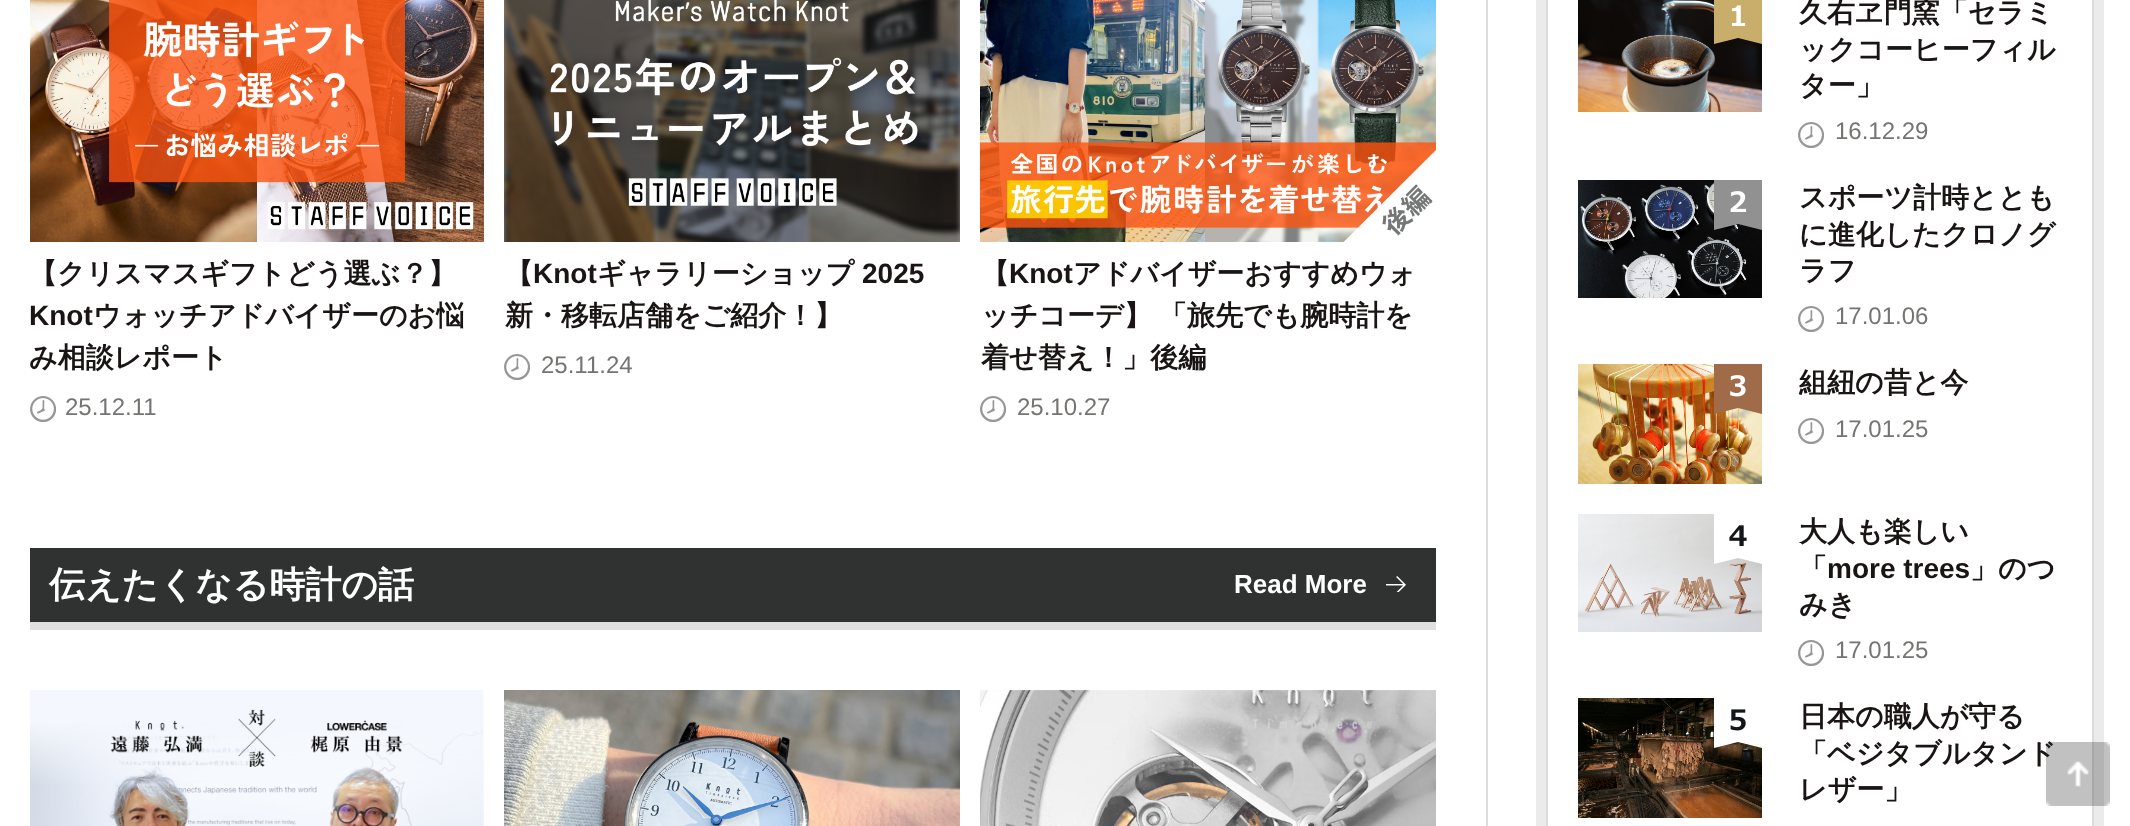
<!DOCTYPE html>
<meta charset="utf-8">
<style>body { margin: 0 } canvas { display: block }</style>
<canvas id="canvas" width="2130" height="826"></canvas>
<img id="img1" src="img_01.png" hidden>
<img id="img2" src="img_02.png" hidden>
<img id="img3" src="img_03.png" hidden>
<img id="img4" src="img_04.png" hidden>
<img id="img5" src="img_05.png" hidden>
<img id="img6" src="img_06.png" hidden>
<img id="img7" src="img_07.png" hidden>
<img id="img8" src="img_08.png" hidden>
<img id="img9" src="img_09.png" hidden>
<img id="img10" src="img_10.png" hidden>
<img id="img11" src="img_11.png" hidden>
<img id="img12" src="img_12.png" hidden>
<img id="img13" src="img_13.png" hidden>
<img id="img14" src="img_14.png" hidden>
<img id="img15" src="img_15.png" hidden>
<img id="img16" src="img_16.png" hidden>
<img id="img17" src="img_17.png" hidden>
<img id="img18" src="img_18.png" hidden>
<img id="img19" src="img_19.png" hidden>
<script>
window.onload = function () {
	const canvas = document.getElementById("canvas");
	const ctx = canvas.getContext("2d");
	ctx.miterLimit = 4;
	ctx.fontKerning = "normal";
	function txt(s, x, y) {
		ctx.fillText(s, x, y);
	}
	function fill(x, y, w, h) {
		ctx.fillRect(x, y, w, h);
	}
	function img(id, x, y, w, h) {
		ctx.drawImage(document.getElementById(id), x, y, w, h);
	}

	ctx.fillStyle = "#FFFFFF";
	fill(0, 0, 2130, 826);
	img("img1", 30, 0, 454, 242);
	img("img2", 30, 396, 26, 26);
	img("img3", 504, 0, 456, 242);
	img("img2", 504, 354, 26, 26);
	img("img4", 980, 0, 456, 242);
	img("img2", 980, 396, 26, 26);
	ctx.fillStyle = "#303232";
	fill(30, 548, 1406, 74);
	ctx.fillStyle = "#E0E0E0";
	fill(30, 622, 1406, 8);
	img("img5", 1386, 576, 20, 16);
	img("img6", 30, 690, 454, 136);
	img("img7", 504, 690, 456, 136);
	img("img8", 980, 690, 456, 136);
	ctx.fillStyle = "#DCDCDC";
	fill(1486, 0, 2, 826);
	ctx.strokeStyle = "#EBEBEB";
	ctx.lineWidth = 10;
	ctx.strokeRect(1541, -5, 558, 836);
	ctx.strokeStyle = "#DCDCDC";
	ctx.lineWidth = 2;
	ctx.strokeRect(1547, -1, 546, 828);
	img("img9", 1578, 0, 184, 112);
	img("img10", 1714, 0, 48, 44);
	img("img2", 1798, 122, 26, 26);
	img("img11", 1578, 180, 184, 118);
	img("img12", 1714, 180, 48, 50);
	img("img2", 1798, 306, 26, 26);
	img("img13", 1578, 364, 184, 120);
	img("img14", 1714, 364, 48, 50);
	img("img2", 1798, 418, 26, 26);
	img("img15", 1578, 514, 184, 118);
	img("img16", 1714, 514, 48, 50);
	img("img2", 1798, 640, 26, 26);
	img("img17", 1578, 698, 184, 120);
	img("img18", 1714, 698, 48, 50);
	ctx.font = "bold 28px WenQuanYi Zen Hei";
	ctx.fillStyle = "#1A1414";
	txt("【クリスマスギフトどう選ぶ？】", 29, 283);
	ctx.font = "bold 28px Liberation Sans";
	txt("Knot", 29, 325);
	ctx.font = "bold 28px WenQuanYi Zen Hei";
	txt("ウォッチアドバイザーのお悩", 93, 325);
	txt("み相談レポート", 29, 367);
	ctx.font = "24px Liberation Sans";
	ctx.fillStyle = "#757472";
	txt("25.12.11", 65, 415);
	ctx.font = "bold 28px WenQuanYi Zen Hei";
	ctx.fillStyle = "#1A1414";
	txt("【", 505, 283);
	ctx.font = "bold 28px Liberation Sans";
	txt("Knot", 533, 283);
	ctx.font = "bold 28px WenQuanYi Zen Hei";
	txt("ギャラリーショップ", 597, 283);
	ctx.font = "bold 28px Liberation Sans";
	txt("2025", 862, 283);
	ctx.font = "bold 28px WenQuanYi Zen Hei";
	txt("新・移転店舗をご紹介！】", 505, 325);
	ctx.font = "24px Liberation Sans";
	ctx.fillStyle = "#757472";
	txt("25.11.24", 541, 373);
	ctx.font = "bold 28px WenQuanYi Zen Hei";
	ctx.fillStyle = "#1A1414";
	txt("【", 981, 283);
	ctx.font = "bold 28px Liberation Sans";
	txt("Knot", 1009, 283);
	ctx.font = "bold 28px WenQuanYi Zen Hei";
	txt("アドバイザーおすすめウォ", 1073, 283);
	ctx.wordSpacing = "-1px";
	txt("ッチコーデ】 「旅先でも腕時計を", 981, 325);
	ctx.wordSpacing = "0px";
	txt("着せ替え！」後編", 981, 367);
	ctx.font = "24px Liberation Sans";
	ctx.fillStyle = "#757472";
	txt("25.10.27", 1017, 415);
	ctx.font = "bold 36px WenQuanYi Zen Hei";
	ctx.fillStyle = "#FFFFFF";
	txt("伝えたくなる時計の話", 49, 597);
	ctx.font = "bold 26px Liberation Sans";
	txt("Read More", 1234, 593);
	ctx.font = "bold 28px WenQuanYi Zen Hei";
	ctx.fillStyle = "#1A1414";
	txt("久右ヱ門窯「セラミ", 1799, 22);
	txt("ックコーヒーフィル", 1799, 59);
	txt("ター」", 1799, 95);
	ctx.font = "24px Liberation Sans";
	ctx.fillStyle = "#757472";
	txt("16.12.29", 1835, 139);
	ctx.font = "bold 28px WenQuanYi Zen Hei";
	ctx.fillStyle = "#1A1414";
	txt("スポーツ計時ととも", 1799, 207);
	txt("に進化したクロノグ", 1799, 244);
	txt("ラフ", 1799, 280);
	ctx.font = "24px Liberation Sans";
	ctx.fillStyle = "#757472";
	txt("17.01.06", 1835, 324);
	ctx.font = "bold 28px WenQuanYi Zen Hei";
	ctx.fillStyle = "#1A1414";
	txt("組紐の昔と今", 1799, 392);
	ctx.font = "24px Liberation Sans";
	ctx.fillStyle = "#757472";
	txt("17.01.25", 1835, 437);
	ctx.font = "bold 28px WenQuanYi Zen Hei";
	ctx.fillStyle = "#1A1414";
	txt("大人も楽しい", 1799, 541);
	txt("「", 1799, 578);
	ctx.font = "bold 28px Liberation Sans";
	txt("more trees", 1827, 578);
	ctx.font = "bold 28px WenQuanYi Zen Hei";
	txt("」のつ", 1970, 578);
	txt("みき", 1799, 614);
	ctx.font = "24px Liberation Sans";
	ctx.fillStyle = "#757472";
	txt("17.01.25", 1835, 658);
	ctx.font = "bold 28px WenQuanYi Zen Hei";
	ctx.fillStyle = "#1A1414";
	txt("日本の職人が守る", 1799, 726);
	txt("「ベジタブルタンド", 1799, 763);
	txt("レザー」", 1799, 799);
	img("img19", 2046, 742, 64, 64);
};
</script>
